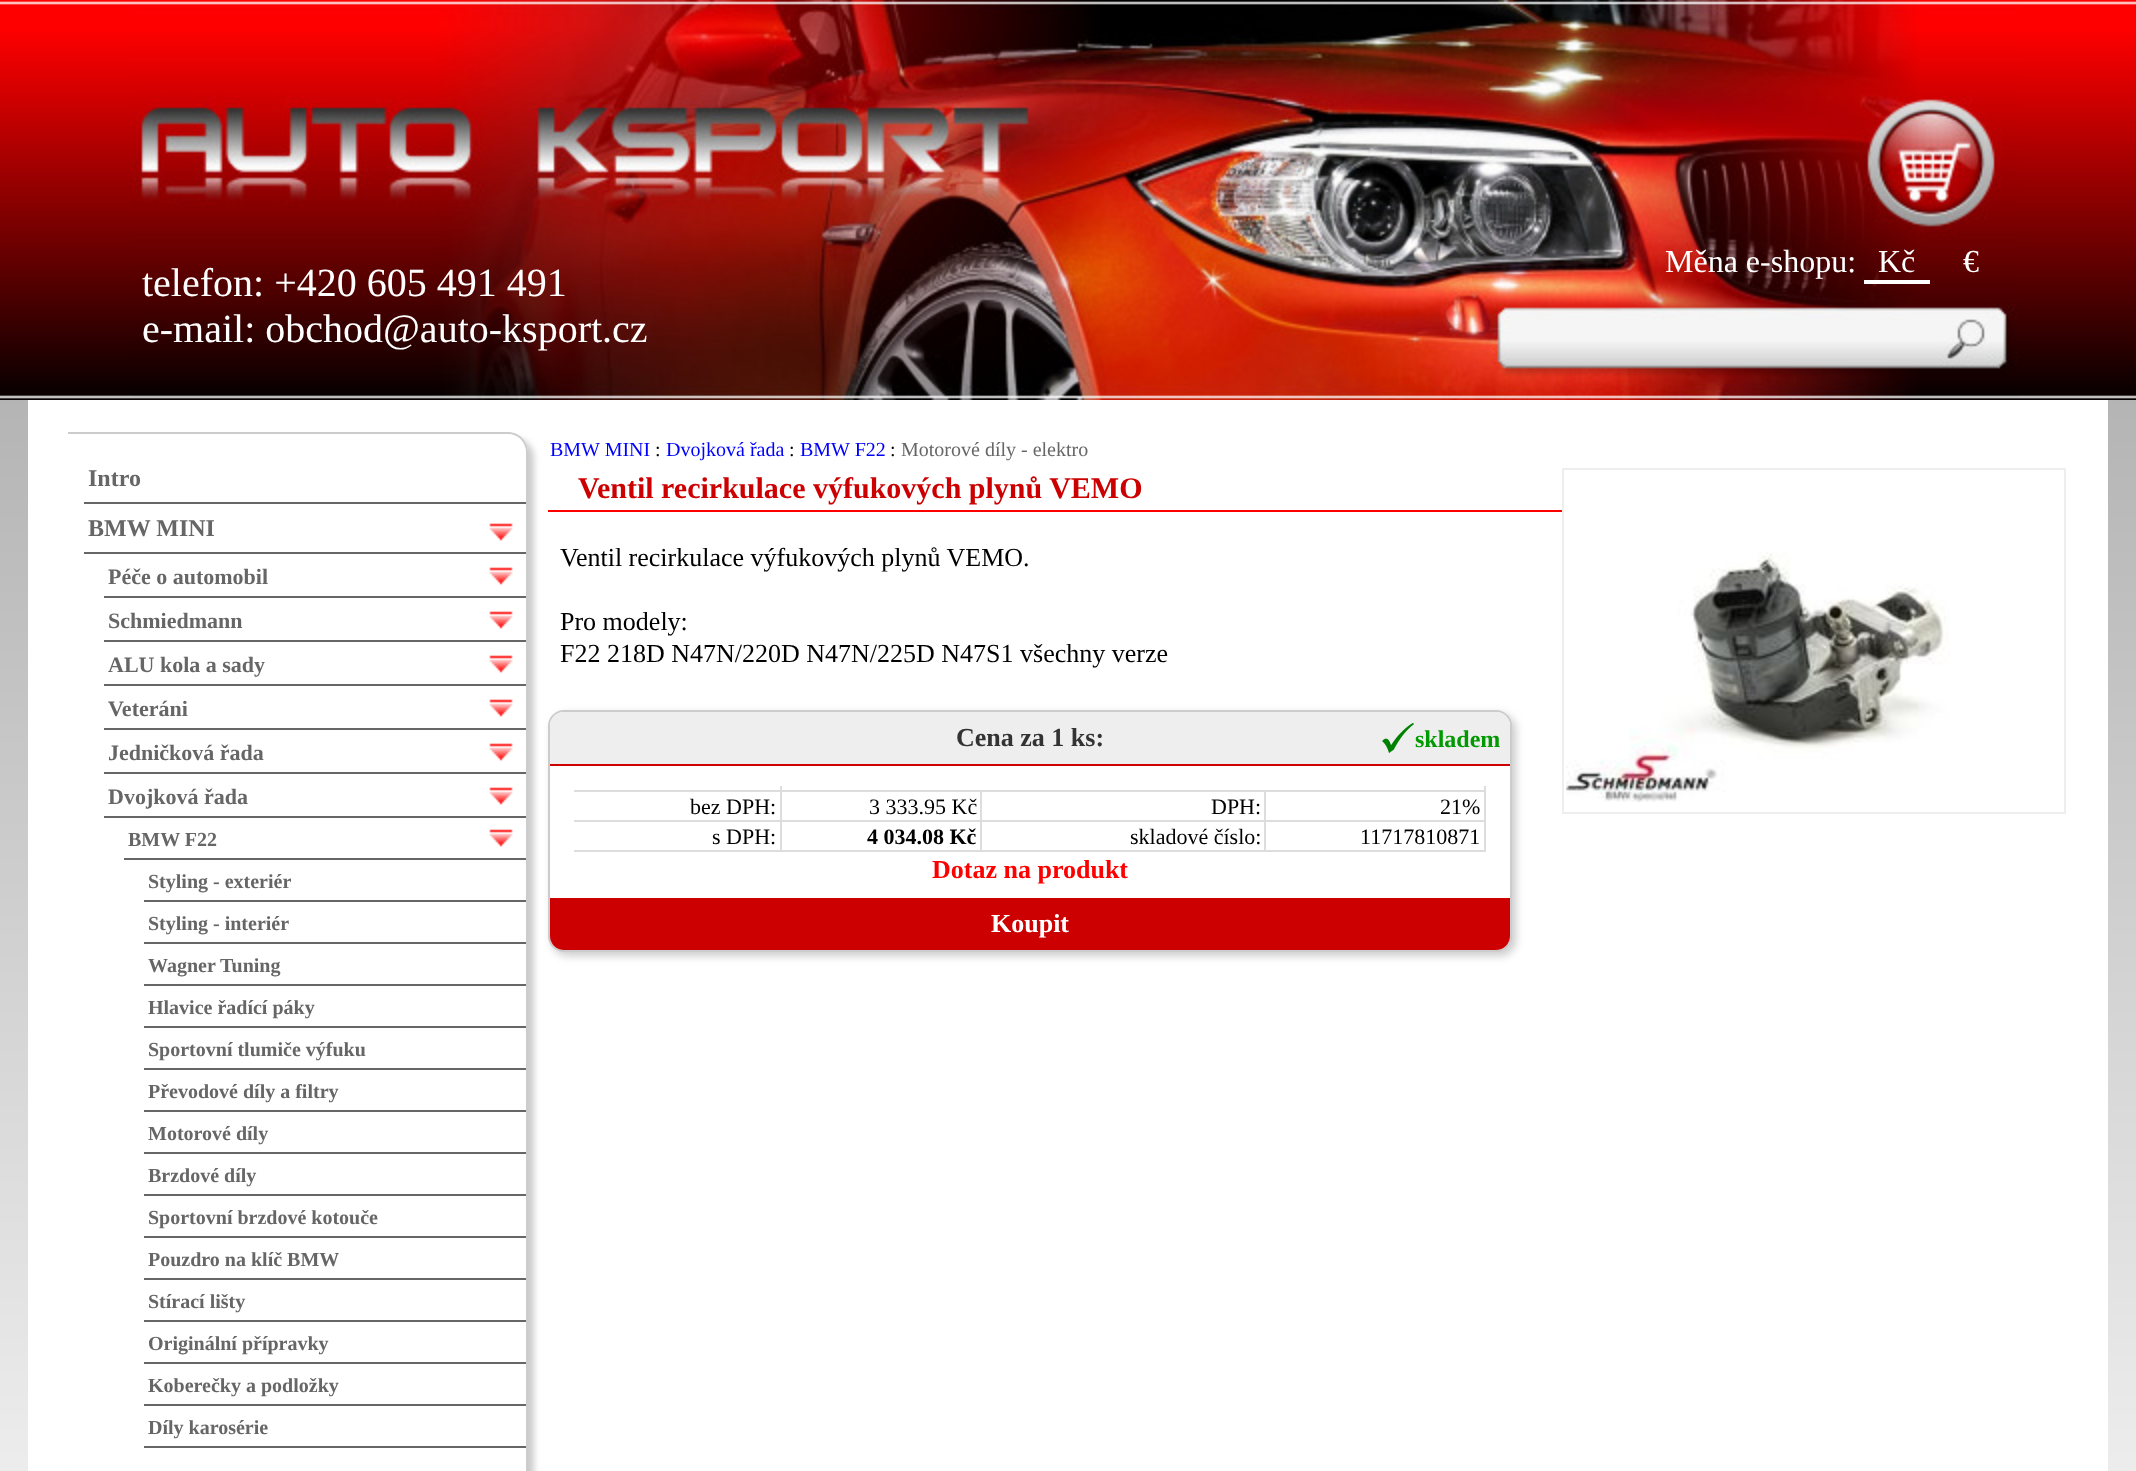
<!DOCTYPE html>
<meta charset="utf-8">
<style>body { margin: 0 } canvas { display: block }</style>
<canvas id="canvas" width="2136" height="1471"></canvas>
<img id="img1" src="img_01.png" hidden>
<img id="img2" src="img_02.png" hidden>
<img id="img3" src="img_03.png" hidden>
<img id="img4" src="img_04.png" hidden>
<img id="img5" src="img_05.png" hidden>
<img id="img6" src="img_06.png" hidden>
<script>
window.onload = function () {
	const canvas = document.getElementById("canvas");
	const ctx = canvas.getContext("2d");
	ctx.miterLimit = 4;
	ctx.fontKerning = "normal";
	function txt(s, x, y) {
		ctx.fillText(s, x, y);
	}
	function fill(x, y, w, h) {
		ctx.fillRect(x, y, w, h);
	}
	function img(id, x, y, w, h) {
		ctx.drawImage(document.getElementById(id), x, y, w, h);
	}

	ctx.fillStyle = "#FFFFFF";
	fill(0, 0, 2136, 1471);
	img("img1", 0, 400, 2136, 1071);
	img("img2", 0, 0, 2136, 400);
	img("img3", 132, 0, 1888, 400);
	fill(1864, 280, 66, 4);
	fill(28, 400, 2080, 1071);
	ctx.save();
	ctx.beginPath();
	ctx.moveTo(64, 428);
	ctx.lineTo(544, 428);
	ctx.lineTo(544, 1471);
	ctx.lineTo(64, 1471);
	ctx.closePath();
	ctx.moveTo(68, 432);
	ctx.lineTo(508, 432);
	ctx.bezierCurveTo(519, 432, 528, 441, 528, 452);
	ctx.lineTo(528, 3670);
	ctx.bezierCurveTo(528, 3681, 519, 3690, 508, 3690);
	ctx.lineTo(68, 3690);
	ctx.closePath();
	ctx.clip("evenodd");
	ctx.fillStyle = "#CCCCCC";
	ctx.filter = "blur(3px)";
	ctx.beginPath();
	ctx.roundRect(74, 438, 460, 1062, 20);
	ctx.fill();
	ctx.filter = "none";
	ctx.restore();
	ctx.fillStyle = "#CCCCCC";
	ctx.beginPath();
	ctx.moveTo(68, 432);
	ctx.lineTo(508, 432);
	ctx.bezierCurveTo(519, 432, 528, 441, 528, 452);
	ctx.lineTo(528, 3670);
	ctx.bezierCurveTo(528, 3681, 519, 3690, 508, 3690);
	ctx.lineTo(68, 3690);
	ctx.closePath();
	ctx.moveTo(68, 434);
	ctx.lineTo(508, 434);
	ctx.bezierCurveTo(518, 434, 526, 442, 526, 452);
	ctx.lineTo(526, 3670);
	ctx.bezierCurveTo(526, 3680, 518, 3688, 508, 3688);
	ctx.lineTo(68, 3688);
	ctx.closePath();
	ctx.fill("evenodd");
	ctx.fillStyle = "#666666";
	fill(84, 502, 442, 2);
	fill(84, 552, 442, 2);
	img("img4", 489, 523, 24, 18);
	fill(104, 596, 422, 2);
	img("img4", 489, 567, 24, 18);
	fill(104, 640, 422, 2);
	img("img4", 489, 611, 24, 18);
	fill(104, 684, 422, 2);
	img("img4", 489, 655, 24, 18);
	fill(104, 728, 422, 2);
	img("img4", 489, 699, 24, 18);
	fill(104, 772, 422, 2);
	img("img4", 489, 743, 24, 18);
	fill(104, 816, 422, 2);
	img("img4", 489, 787, 24, 18);
	fill(124, 858, 402, 2);
	img("img4", 489, 829, 24, 18);
	fill(144, 900, 382, 2);
	fill(144, 942, 382, 2);
	fill(144, 984, 382, 2);
	fill(144, 1026, 382, 2);
	fill(144, 1068, 382, 2);
	fill(144, 1110, 382, 2);
	fill(144, 1152, 382, 2);
	fill(144, 1194, 382, 2);
	fill(144, 1236, 382, 2);
	fill(144, 1278, 382, 2);
	fill(144, 1320, 382, 2);
	fill(144, 1362, 382, 2);
	fill(144, 1404, 382, 2);
	fill(144, 1446, 382, 2);
	ctx.fillStyle = "#FF0000";
	fill(548, 510, 1014, 2);
	ctx.fillStyle = "#EEEEEE";
	fill(1562, 468, 504, 346);
	ctx.fillStyle = "#FFFFFF";
	fill(1564, 470, 500, 342);
	img("img5", 1566, 552, 384, 250);
	ctx.fillStyle = "#CCCCCC";
	ctx.filter = "blur(4px)";
	ctx.beginPath();
	ctx.roundRect(552, 714, 964, 242, 16);
	ctx.fill();
	ctx.filter = "none";
	ctx.fillStyle = "#FFFFFF";
	ctx.beginPath();
	ctx.roundRect(549, 711, 962, 240, 15);
	ctx.fill();
	ctx.strokeStyle = "#CCCCCC";
	ctx.lineWidth = 2;
	ctx.stroke();
	ctx.fillStyle = "#EEEEEE";
	ctx.beginPath();
	ctx.roundRect(550, 712, 960, 54, [14, 14, 0, 0]);
	ctx.fill();
	ctx.fillStyle = "#CC0000";
	fill(550, 764, 960, 2);
	img("img6", 1382, 723, 32, 30);
	ctx.fillStyle = "#DDDDDD";
	fill(780, 786, 2, 66);
	fill(574, 790, 208, 2);
	fill(1484, 786, 2, 66);
	fill(782, 790, 704, 2);
	fill(574, 820, 208, 2);
	fill(980, 792, 2, 60);
	fill(782, 820, 200, 2);
	fill(1264, 792, 2, 60);
	fill(982, 820, 504, 2);
	fill(574, 850, 912, 2);
	ctx.fillStyle = "#CC0000";
	ctx.beginPath();
	ctx.roundRect(550, 898, 960, 52, [0, 0, 14, 14]);
	ctx.fill();
	ctx.font = "32px Liberation Serif";
	ctx.fillStyle = "#FFFFFF";
	txt("Měna e-shopu:", 1665, 272);
	txt("Kč", 1878, 272);
	txt("€", 1963, 272);
	ctx.font = "40px Liberation Serif";
	txt("telefon: +420 605 491 491", 142, 296);
	txt("e-mail: obchod@auto-ksport.cz", 142, 342);
	ctx.font = "bold 24px Liberation Serif";
	ctx.fillStyle = "#666666";
	txt("Intro", 88, 486);
	txt("BMW MINI", 88, 536);
	ctx.font = "bold 22px Liberation Serif";
	txt("Péče o automobil", 108, 584);
	txt("Schmiedmann", 108, 628);
	txt("ALU kola a sady", 108, 672);
	txt("Veteráni", 108, 716);
	txt("Jedničková řada", 108, 760);
	txt("Dvojková řada", 108, 804);
	ctx.font = "bold 20px Liberation Serif";
	txt("BMW F22", 128, 846);
	txt("Styling - exteriér", 148, 888);
	txt("Styling - interiér", 148, 930);
	txt("Wagner Tuning", 148, 972);
	txt("Hlavice řadící páky", 148, 1014);
	txt("Sportovní tlumiče výfuku", 148, 1056);
	txt("Převodové díly a filtry", 148, 1098);
	txt("Motorové díly", 148, 1140);
	txt("Brzdové díly", 148, 1182);
	txt("Sportovní brzdové kotouče", 148, 1224);
	txt("Pouzdro na klíč BMW", 148, 1266);
	txt("Stírací lišty", 148, 1308);
	txt("Originální přípravky", 148, 1350);
	txt("Koberečky a podložky", 148, 1392);
	txt("Díly karosérie", 148, 1434);
	ctx.font = "20px Liberation Serif";
	ctx.fillStyle = "#0000FF";
	txt("BMW MINI", 550, 456);
	ctx.fillStyle = "#000000";
	txt(":", 655, 456);
	ctx.fillStyle = "#0000FF";
	txt("Dvojková řada", 666, 456);
	ctx.fillStyle = "#000000";
	txt(":", 789, 456);
	ctx.fillStyle = "#0000FF";
	txt("BMW F22", 800, 456);
	ctx.fillStyle = "#000000";
	txt(":", 890, 456);
	ctx.fillStyle = "#666666";
	txt("Motorové díly - elektro", 901, 456);
	ctx.font = "bold 30px Liberation Serif";
	ctx.fillStyle = "#CC0000";
	txt("Ventil recirkulace výfukových plynů VEMO", 578, 498);
	ctx.font = "26px Liberation Serif";
	ctx.fillStyle = "#000000";
	txt("Ventil recirkulace výfukových plynů VEMO.", 560, 566);
	txt("Pro modely:", 560, 630);
	txt("F22 218D N47N/220D N47N/225D N47S1 všechny verze", 560, 662);
	ctx.font = "bold 26px Liberation Serif";
	ctx.fillStyle = "#333333";
	txt("Cena za 1 ks:", 956, 746);
	ctx.font = "bold 24px Liberation Serif";
	ctx.fillStyle = "#009900";
	txt("skladem", 1415, 747);
	ctx.font = "22px Liberation Serif";
	ctx.fillStyle = "#000000";
	txt("bez DPH:", 690, 814);
	txt("3 333.95 Kč", 869, 814);
	txt("DPH:", 1211, 814);
	txt("21%", 1440, 814);
	txt("s DPH:", 712, 844);
	ctx.font = "bold 22px Liberation Serif";
	txt("4 034.08 Kč", 867, 844);
	ctx.font = "22px Liberation Serif";
	txt("skladové číslo:", 1130, 844);
	txt("11717810871", 1360, 844);
	ctx.font = "bold 26px Liberation Serif";
	ctx.fillStyle = "#FF0000";
	txt("Dotaz na produkt", 932, 878);
	ctx.fillStyle = "#FFFFFF";
	txt("Koupit", 991, 932);
};
</script>
